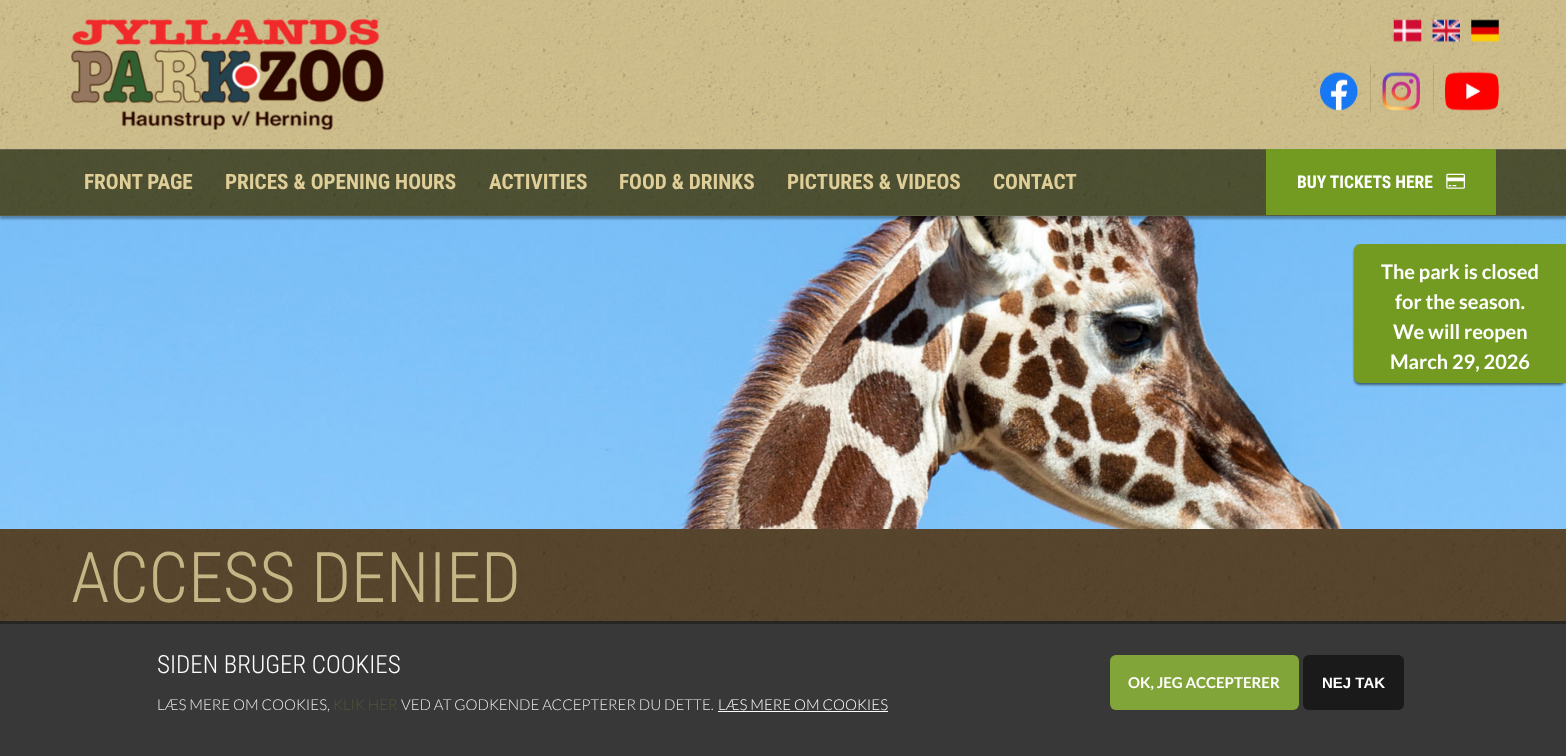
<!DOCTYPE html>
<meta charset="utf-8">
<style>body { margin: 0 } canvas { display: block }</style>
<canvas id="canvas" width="1566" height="756"></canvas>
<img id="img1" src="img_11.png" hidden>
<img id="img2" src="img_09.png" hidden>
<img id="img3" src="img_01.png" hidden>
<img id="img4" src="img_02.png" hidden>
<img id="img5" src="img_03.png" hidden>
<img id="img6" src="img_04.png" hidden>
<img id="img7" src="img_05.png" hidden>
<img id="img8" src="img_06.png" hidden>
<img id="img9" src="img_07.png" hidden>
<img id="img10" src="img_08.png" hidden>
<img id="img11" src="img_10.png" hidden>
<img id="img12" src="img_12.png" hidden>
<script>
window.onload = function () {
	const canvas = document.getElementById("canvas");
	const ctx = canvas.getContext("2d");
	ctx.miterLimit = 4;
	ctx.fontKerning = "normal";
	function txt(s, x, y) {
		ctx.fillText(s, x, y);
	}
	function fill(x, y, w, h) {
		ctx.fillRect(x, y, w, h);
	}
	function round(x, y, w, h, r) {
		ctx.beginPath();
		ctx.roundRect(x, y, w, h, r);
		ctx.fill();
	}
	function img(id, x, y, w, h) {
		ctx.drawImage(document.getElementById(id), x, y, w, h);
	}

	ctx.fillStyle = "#FFFFFF";
	fill(0, 0, 1566, 756);
	img("img1", 0, 216, 1566, 313);
	ctx.fillStyle = "rgba(0, 0, 0, 0.3)";
	ctx.filter = "blur(1px)";
	ctx.beginPath();
	ctx.rect(0, 151, 1566, 68);
	ctx.fill();
	ctx.filter = "none";
	img("img2", 0, 148, 1566, 68);
	img("img3", 0, 0, 1566, 149);
	img("img4", 71, 18, 313, 112);
	img("img5", 1393, 19, 29, 23);
	img("img6", 1432, 19, 28, 23);
	img("img7", 1471, 19, 28, 23);
	img("img8", 1320, 71, 38, 40);
	ctx.fillStyle = "rgba(0, 0, 0, 0.1)";
	fill(1370, 65, 1, 48);
	img("img9", 1382, 71, 38, 40);
	fill(1433, 65, 1, 48);
	img("img10", 1445, 71, 54, 40);
	ctx.fillStyle = "#739B22";
	fill(1266, 149, 230, 66);
	img("img11", 1446, 173, 19, 16);
	ctx.fillStyle = "rgba(0, 0, 0, 0.5)";
	ctx.filter = "blur(1px)";
	ctx.beginPath();
	ctx.roundRect(1354, 246, 212, 139, 6);
	ctx.fill();
	ctx.filter = "none";
	ctx.fillStyle = "#739B22";
	ctx.beginPath();
	ctx.roundRect(1354, 244, 212, 139, [6, 0, 0, 6]);
	ctx.fill();
	ctx.fillStyle = "#604C31";
	fill(0, 529, 1566, 95);
	img("img12", 0, 529, 1566, 95);
	ctx.fillStyle = "rgba(34, 34, 34, 0.9)";
	fill(0, 621, 1566, 135);
	ctx.fillStyle = "#FFFFFF";
	fill(718, 711, 170, 1);
	ctx.fillStyle = "#81A538";
	round(1110, 655, 189, 55, 6);
	ctx.fillStyle = "#1A1A1A";
	round(1303, 655, 101, 55, 6);
	ctx.font = "bold 21.25px Roboto Condensed";
	ctx.fillStyle = "#E0CE98";
	txt("FRONT PAGE", 84, 189);
	txt("PRICES & OPENING HOURS", 225, 189);
	txt("ACTIVITIES", 489, 189);
	txt("FOOD & DRINKS", 619, 189);
	txt("PICTURES & VIDEOS", 787, 189);
	txt("CONTACT", 993, 189);
	ctx.font = "bold 17.5px Roboto Condensed";
	ctx.fillStyle = "#FFFFFF";
	txt("BUY TICKETS HERE", 1297, 188);
	ctx.font = "bold 20px Lato";
	txt("The park is closed", 1381, 279);
	txt("for the season.", 1395, 309);
	txt("We will reopen", 1393, 339);
	txt("March 29, 2026", 1390, 369);
	ctx.font = "300 70px Roboto Condensed";
	ctx.fillStyle = "#C6B685";
	txt("ACCESS DENIED", 71, 602);
	ctx.font = "300 25px Roboto Condensed";
	ctx.fillStyle = "#FFFFFF";
	txt("SIDEN BRUGER COOKIES", 157, 673);
	ctx.font = "300 15px Lato";
	ctx.fillStyle = "#EBEBEB";
	txt("LÆS MERE OM COOKIES,", 157, 710);
	ctx.fillStyle = "#525537";
	txt("KLIK HER", 333, 710);
	ctx.fillStyle = "#EBEBEB";
	txt("VED AT GODKENDE ACCEPTERER DU DETTE.", 401, 710);
	ctx.fillStyle = "#FFFFFF";
	txt("LÆS MERE OM COOKIES", 718, 710);
	ctx.font = "bold 15px Lato";
	txt("OK, JEG ACCEPTERER", 1128, 688);
	ctx.font = "bold 15px Liberation Sans";
	txt("NEJ TAK", 1322, 688);
};
</script>
